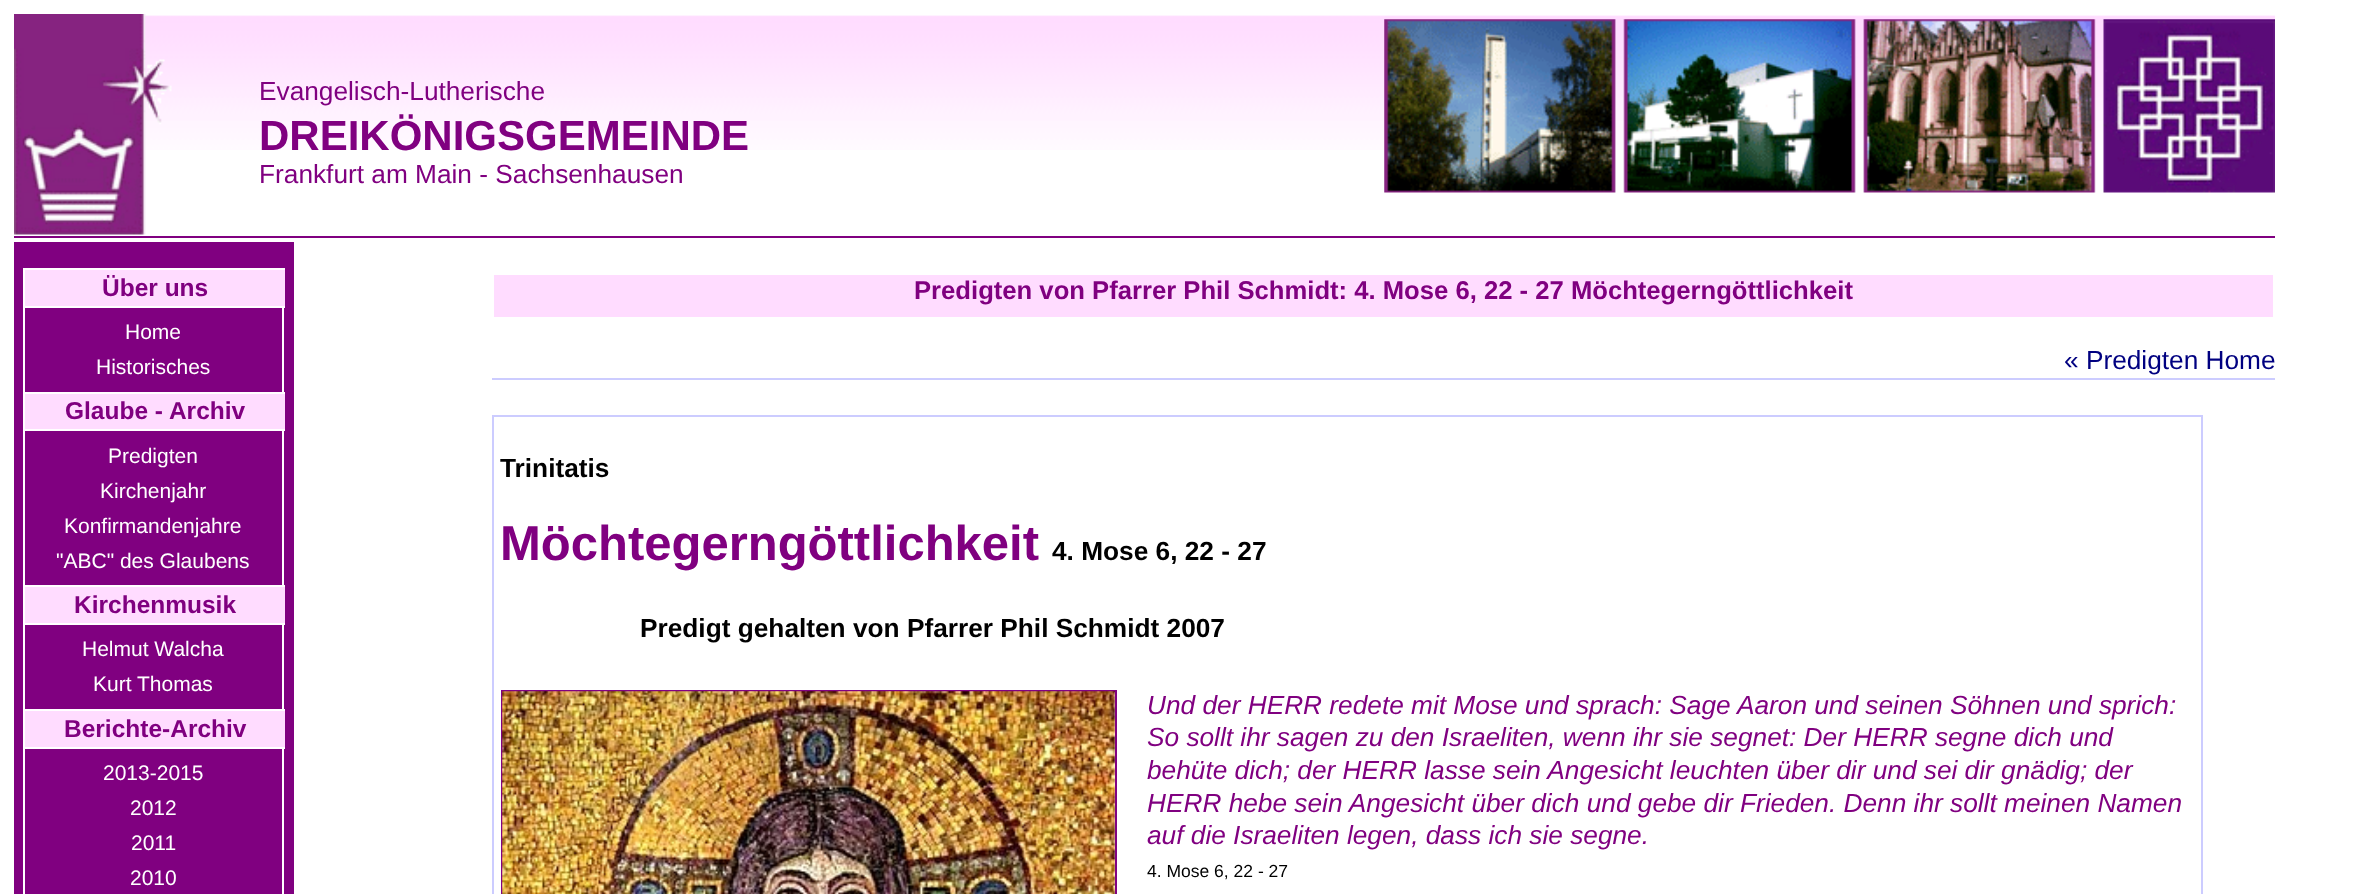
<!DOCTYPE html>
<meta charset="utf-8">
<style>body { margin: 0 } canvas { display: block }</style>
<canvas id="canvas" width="2354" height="894"></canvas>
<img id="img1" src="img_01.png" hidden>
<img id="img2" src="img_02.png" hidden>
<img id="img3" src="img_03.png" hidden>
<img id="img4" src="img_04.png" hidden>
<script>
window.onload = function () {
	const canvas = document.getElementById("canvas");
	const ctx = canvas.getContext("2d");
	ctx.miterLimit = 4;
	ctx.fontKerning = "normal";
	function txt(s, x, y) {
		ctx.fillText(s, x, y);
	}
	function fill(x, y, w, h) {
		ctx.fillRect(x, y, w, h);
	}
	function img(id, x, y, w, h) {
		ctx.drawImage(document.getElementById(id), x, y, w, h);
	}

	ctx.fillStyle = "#FFFFFF";
	fill(0, 0, 2354, 894);
	ctx.fillStyle = "#800080";
	fill(14, 236, 2261, 2);
	img("img1", 144, 15, 2131, 135);
	img("img2", 1384, 19, 891, 174);
	img("img3", 14, 14, 158, 221);
	fill(14, 242, 280, 652);
	ctx.fillStyle = "#FFFFFF";
	fill(282, 308, 2, 586);
	fill(23, 268, 2, 626);
	ctx.fillStyle = "#FFDCFF";
	fill(25, 270, 260, 36);
	ctx.fillStyle = "#FFFFFF";
	fill(25, 268, 260, 2);
	fill(25, 306, 260, 2);
	ctx.fillStyle = "#FFDCFF";
	fill(25, 394, 260, 35);
	ctx.fillStyle = "#FFFFFF";
	fill(25, 392, 260, 2);
	fill(25, 429, 260, 2);
	ctx.fillStyle = "#FFDCFF";
	fill(25, 587, 260, 36);
	ctx.fillStyle = "#FFFFFF";
	fill(25, 585, 260, 2);
	fill(25, 623, 260, 2);
	ctx.fillStyle = "#FFDCFF";
	fill(25, 711, 260, 36);
	ctx.fillStyle = "#FFFFFF";
	fill(25, 709, 260, 2);
	fill(25, 747, 260, 2);
	ctx.fillStyle = "#FFDCFF";
	fill(494, 275, 1779, 42);
	ctx.fillStyle = "#CCCCFF";
	fill(492, 378, 1783, 2);
	ctx.strokeStyle = "#CCCCFF";
	ctx.lineWidth = 2;
	ctx.strokeRect(493, 416, 1709, 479);
	ctx.strokeStyle = "#810281";
	ctx.strokeRect(502, 691, 614, 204);
	img("img4", 502, 691, 613, 203);
	ctx.font = "26.25px Liberation Sans";
	ctx.fillStyle = "#800080";
	txt("Evangelisch-Lutherische", 259, 100);
	ctx.font = "bold 42px Liberation Sans";
	txt("DREIKÖNIGSGEMEINDE", 259, 150);
	ctx.font = "26.25px Liberation Sans";
	txt("Frankfurt am Main - Sachsenhausen", 259, 183);
	ctx.font = "bold 24.5px Liberation Sans";
	txt("Über uns", 102, 296);
	ctx.font = "21px Liberation Sans";
	ctx.fillStyle = "#FFFFFF";
	txt("Home", 125, 339);
	txt("Historisches", 96, 374);
	ctx.font = "bold 24.5px Liberation Sans";
	ctx.fillStyle = "#800080";
	txt("Glaube - Archiv", 65, 419);
	ctx.font = "21px Liberation Sans";
	ctx.fillStyle = "#FFFFFF";
	txt("Predigten", 108, 463);
	txt("Kirchenjahr", 100, 498);
	txt("Konfirmandenjahre", 64, 533);
	txt("\"ABC\" des Glaubens", 56, 568);
	ctx.font = "bold 24.5px Liberation Sans";
	ctx.fillStyle = "#800080";
	txt("Kirchenmusik", 74, 613);
	ctx.font = "21px Liberation Sans";
	ctx.fillStyle = "#FFFFFF";
	txt("Helmut Walcha", 82, 656);
	txt("Kurt Thomas", 93, 691);
	ctx.font = "bold 24.5px Liberation Sans";
	ctx.fillStyle = "#800080";
	txt("Berichte-Archiv", 64, 737);
	ctx.font = "21px Liberation Sans";
	ctx.fillStyle = "#FFFFFF";
	txt("2013-2015", 103, 780);
	txt("2012", 130, 815);
	txt("2011", 131, 850);
	txt("2010", 130, 885);
	ctx.font = "bold 25.65px Liberation Sans";
	ctx.fillStyle = "#800080";
	txt("Predigten von Pfarrer Phil Schmidt: 4. Mose 6, 22 - 27 Möchtegerngöttlichkeit", 914, 299);
	ctx.font = "26.25px Liberation Sans";
	ctx.fillStyle = "#000080";
	txt("« Predigten Home", 2064, 369);
	ctx.font = "bold 26.25px Liberation Sans";
	ctx.fillStyle = "#000000";
	txt("Trinitatis", 500, 477);
	ctx.font = "bold 49px Liberation Sans";
	ctx.fillStyle = "#800080";
	txt("Möchtegerngöttlichkeit", 500, 560);
	ctx.font = "bold 26.25px Liberation Sans";
	ctx.fillStyle = "#000000";
	txt("4. Mose 6, 22 - 27", 1052, 560);
	txt("Predigt gehalten von Pfarrer Phil Schmidt 2007", 640, 637);
	ctx.font = "italic 26.25px Liberation Sans";
	ctx.fillStyle = "#800080";
	txt("Und der HERR redete mit Mose und sprach: Sage Aaron und seinen Söhnen und sprich:", 1147, 714);
	txt("So sollt ihr sagen zu den Israeliten, wenn ihr sie segnet: Der HERR segne dich und", 1147, 746);
	txt("behüte dich; der HERR lasse sein Angesicht leuchten über dir und sei dir gnädig; der", 1147, 779);
	txt("HERR hebe sein Angesicht über dich und gebe dir Frieden. Denn ihr sollt meinen Namen", 1147, 812);
	txt("auf die Israeliten legen, dass ich sie segne.", 1147, 844);
	ctx.font = "17.5px Liberation Sans";
	ctx.fillStyle = "#000000";
	txt("4. Mose 6, 22 - 27", 1147, 877);
};
</script>
